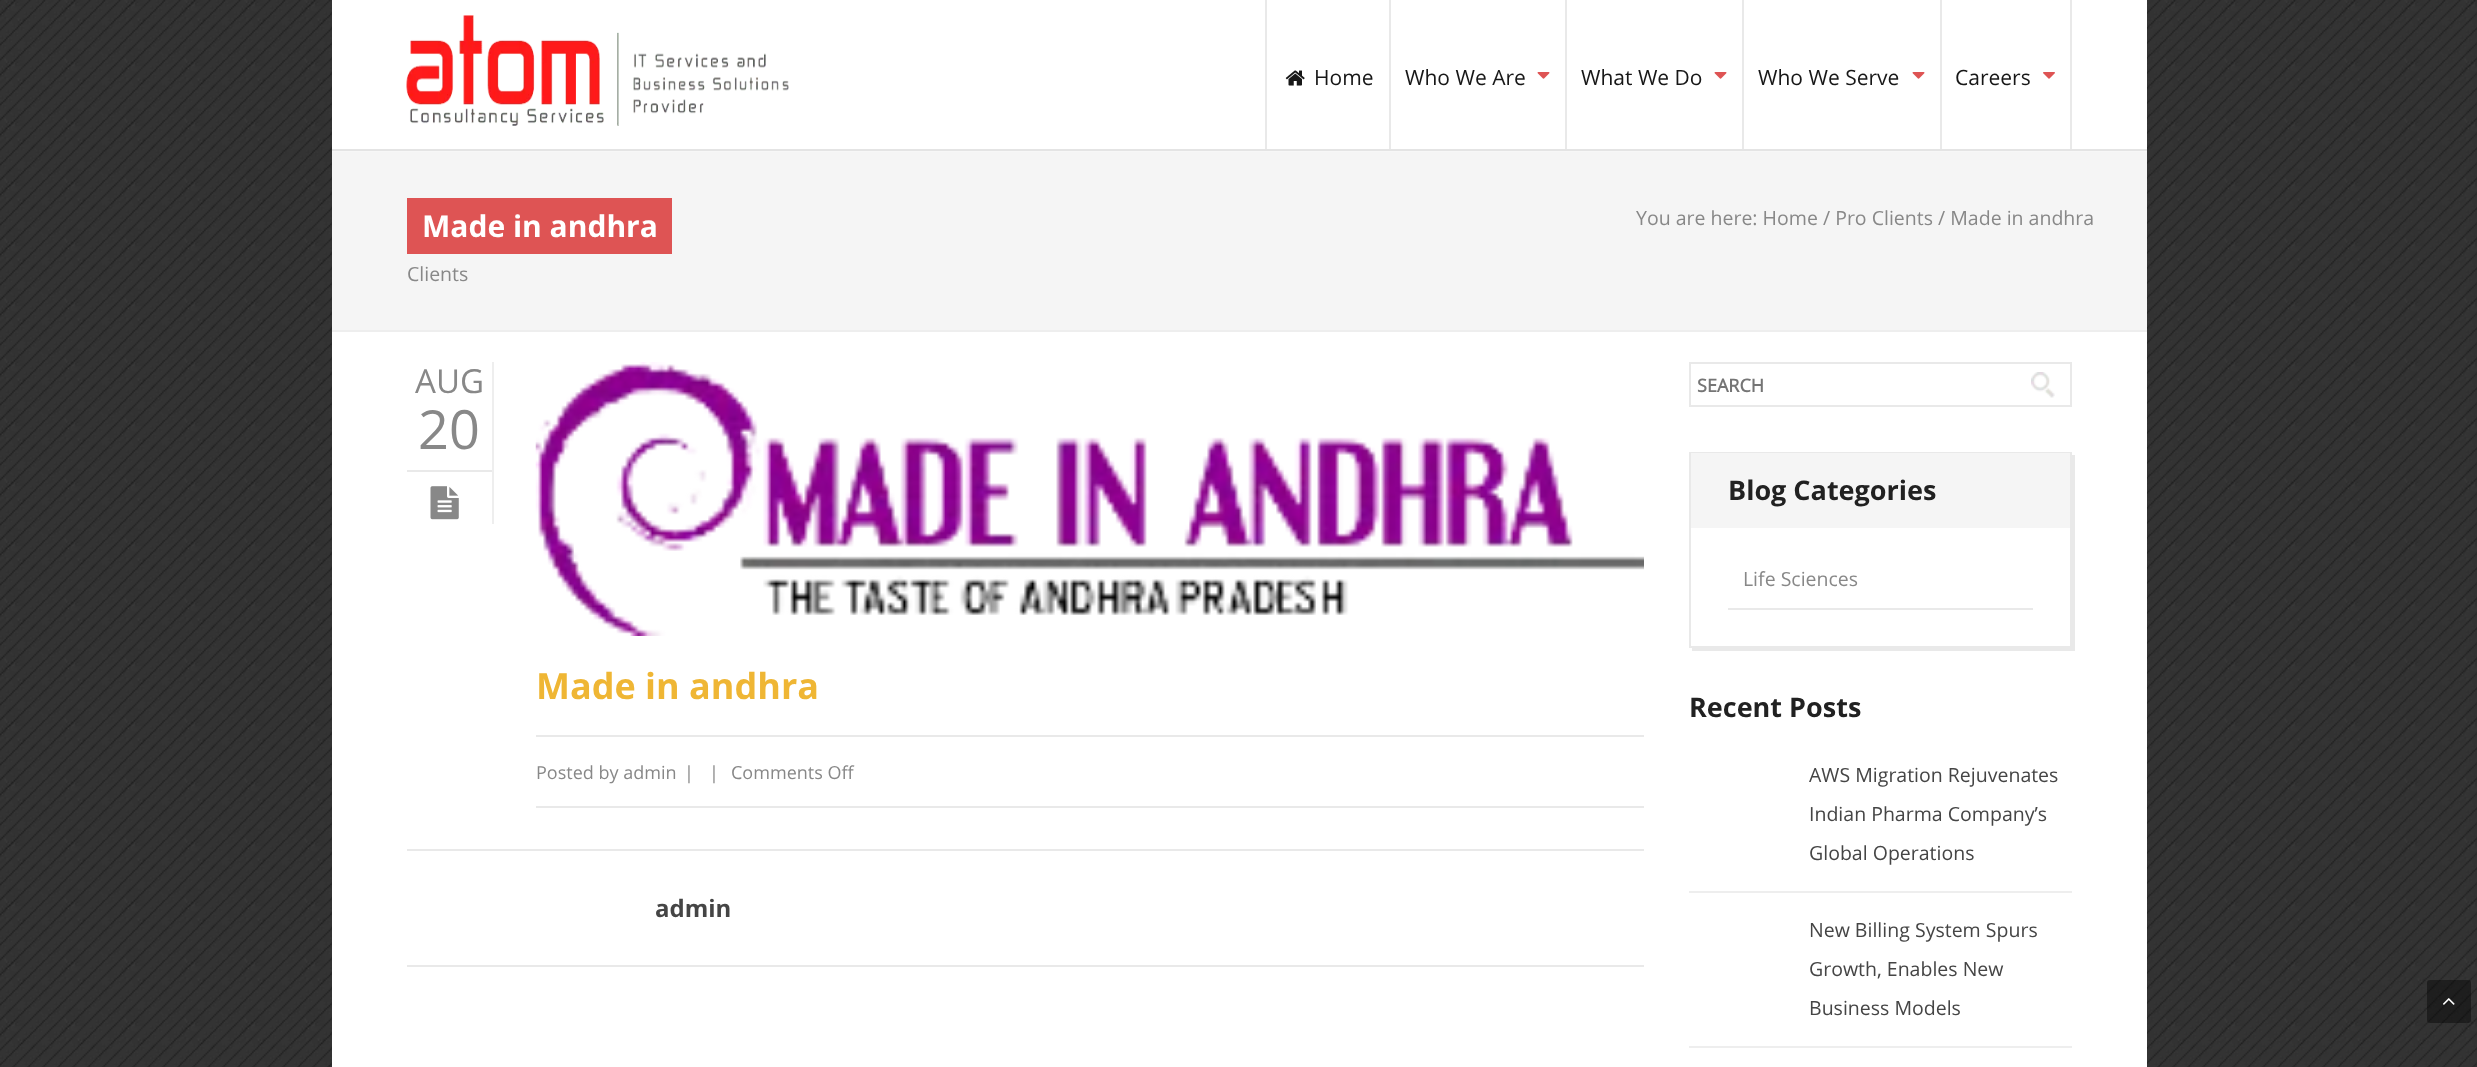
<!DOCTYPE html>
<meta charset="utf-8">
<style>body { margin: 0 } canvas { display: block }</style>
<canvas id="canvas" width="2477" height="1067"></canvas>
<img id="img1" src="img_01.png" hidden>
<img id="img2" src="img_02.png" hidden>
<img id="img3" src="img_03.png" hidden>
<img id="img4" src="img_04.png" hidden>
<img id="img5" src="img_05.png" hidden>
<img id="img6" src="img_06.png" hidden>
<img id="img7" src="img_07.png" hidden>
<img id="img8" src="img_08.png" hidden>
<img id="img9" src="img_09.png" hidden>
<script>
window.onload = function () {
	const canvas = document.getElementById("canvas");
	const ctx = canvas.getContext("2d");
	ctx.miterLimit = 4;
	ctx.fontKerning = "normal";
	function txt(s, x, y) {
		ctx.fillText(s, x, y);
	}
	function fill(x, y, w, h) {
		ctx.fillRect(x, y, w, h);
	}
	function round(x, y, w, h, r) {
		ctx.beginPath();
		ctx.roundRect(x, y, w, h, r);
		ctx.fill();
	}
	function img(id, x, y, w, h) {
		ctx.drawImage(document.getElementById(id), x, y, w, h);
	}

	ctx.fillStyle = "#FFFFFF";
	fill(0, 0, 2477, 1067);
	img("img1", 0, 0, 2477, 1067);
	fill(332, 332, 1815, 735);
	ctx.fillStyle = "#F7F7F7";
	ctx.beginPath();
	ctx.moveTo(332, 150);
	ctx.lineTo(332, 152);
	ctx.lineTo(2147, 152);
	ctx.lineTo(2147, 2);
	ctx.lineTo(2146, 2);
	ctx.lineTo(2146, 150);
	ctx.closePath();
	ctx.fill();
	ctx.fillStyle = "#FFFFFF";
	fill(332, 0, 1815, 149);
	ctx.fillStyle = "#E4E4E4";
	fill(332, 149, 1815, 2);
	img("img2", 406, 15, 383, 111);
	ctx.fillStyle = "#E9E9E9";
	fill(1265, 0, 2, 149);
	img("img3", 1285, 70, 20, 16);
	fill(1389, 0, 2, 149);
	img("img4", 1537, 72, 13, 7);
	fill(1565, 0, 2, 149);
	img("img4", 1714, 72, 13, 7);
	fill(1742, 0, 2, 149);
	img("img4", 1912, 72, 13, 7);
	fill(2070, 0, 2, 149);
	fill(1940, 0, 2, 149);
	img("img5", 2043, 72, 12, 7);
	ctx.fillStyle = "#F5F5F5";
	fill(332, 152, 1815, 178);
	ctx.fillStyle = "#EEEEEE";
	fill(332, 330, 1815, 2);
	ctx.fillStyle = "#DE5454";
	fill(407, 198, 265, 56);
	ctx.fillStyle = "#EEEEEE";
	fill(492, 362, 2, 162);
	ctx.fillStyle = "#E9E9E9";
	fill(407, 470, 85, 2);
	img("img6", 430, 486, 29, 34);
	img("img7", 535, 362, 1109, 274);
	fill(536, 735, 1108, 2);
	fill(536, 806, 1108, 2);
	fill(407, 849, 1237, 2);
	fill(407, 965, 1237, 2);
	img("img8", 2031, 372, 24, 26);
	ctx.strokeStyle = "#E9E9E9";
	ctx.lineWidth = 2;
	ctx.strokeRect(1690, 363, 381, 43);
	ctx.beginPath();
	ctx.moveTo(1692, 648);
	ctx.lineTo(1692, 651);
	ctx.lineTo(2075, 651);
	ctx.lineTo(2075, 455);
	ctx.lineTo(2072, 455);
	ctx.lineTo(2072, 648);
	ctx.closePath();
	ctx.fill();
	ctx.strokeRect(1690, 453, 381, 194);
	ctx.fillStyle = "#F5F5F5";
	fill(1691, 453, 379, 75);
	ctx.fillStyle = "#E9E9E9";
	fill(1728, 608, 305, 2);
	ctx.fillStyle = "#EEEEEE";
	fill(1689, 891, 383, 2);
	fill(1689, 1046, 383, 2);
	ctx.fillStyle = "rgba(0, 0, 0, 0.4)";
	round(2427, 980, 44, 43, 3);
	img("img9", 2443, 998, 12, 7);
	ctx.font = "21px Open Sans";
	ctx.fillStyle = "#171717";
	txt("Home", 1314, 85);
	txt("Who We Are", 1405, 85);
	txt("What We Do", 1581, 85);
	txt("Who We Serve", 1758, 85);
	txt("Careers", 1955, 85);
	ctx.font = "bold 30px Open Sans";
	ctx.fillStyle = "#FFFFFF";
	txt("Made in andhra", 422, 237);
	ctx.font = "19.5px Open Sans";
	ctx.fillStyle = "#888888";
	txt("Clients", 407, 281);
	txt("You are here: Home / Pro Clients / Made in andhra", 1636, 225);
	ctx.font = "33px Open Sans";
	txt("AUG", 415, 393);
	ctx.font = "54px Open Sans";
	txt("20", 418, 449);
	ctx.font = "bold 36px Open Sans";
	ctx.fillStyle = "#EFB634";
	txt("Made in andhra", 536, 699);
	ctx.font = "18px Open Sans";
	ctx.fillStyle = "#888888";
	txt("Posted by admin", 536, 779);
	txt("|", 684, 779);
	txt("|", 709, 779);
	txt("Comments Off", 731, 779);
	ctx.font = "bold 24px Open Sans";
	ctx.fillStyle = "#454545";
	txt("admin", 655, 917);
	ctx.font = "bold 18px 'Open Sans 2'";
	ctx.fillStyle = "#757575";
	txt("SEARCH", 1697, 392);
	ctx.font = "bold 27px Open Sans";
	ctx.fillStyle = "#212121";
	txt("Blog Categories", 1728, 500);
	ctx.font = "19.5px Open Sans";
	ctx.fillStyle = "#888888";
	txt("Life Sciences", 1743, 586);
	ctx.font = "bold 27px Open Sans";
	ctx.fillStyle = "#212121";
	txt("Recent Posts", 1689, 717);
	ctx.font = "19.5px Open Sans";
	ctx.fillStyle = "#454545";
	txt("AWS Migration Rejuvenates", 1809, 782);
	txt("Indian Pharma Company’s", 1809, 821);
	txt("Global Operations", 1809, 860);
	txt("New Billing System Spurs", 1809, 937);
	txt("Growth, Enables New", 1809, 976);
	txt("Business Models", 1809, 1015);
};
</script>
